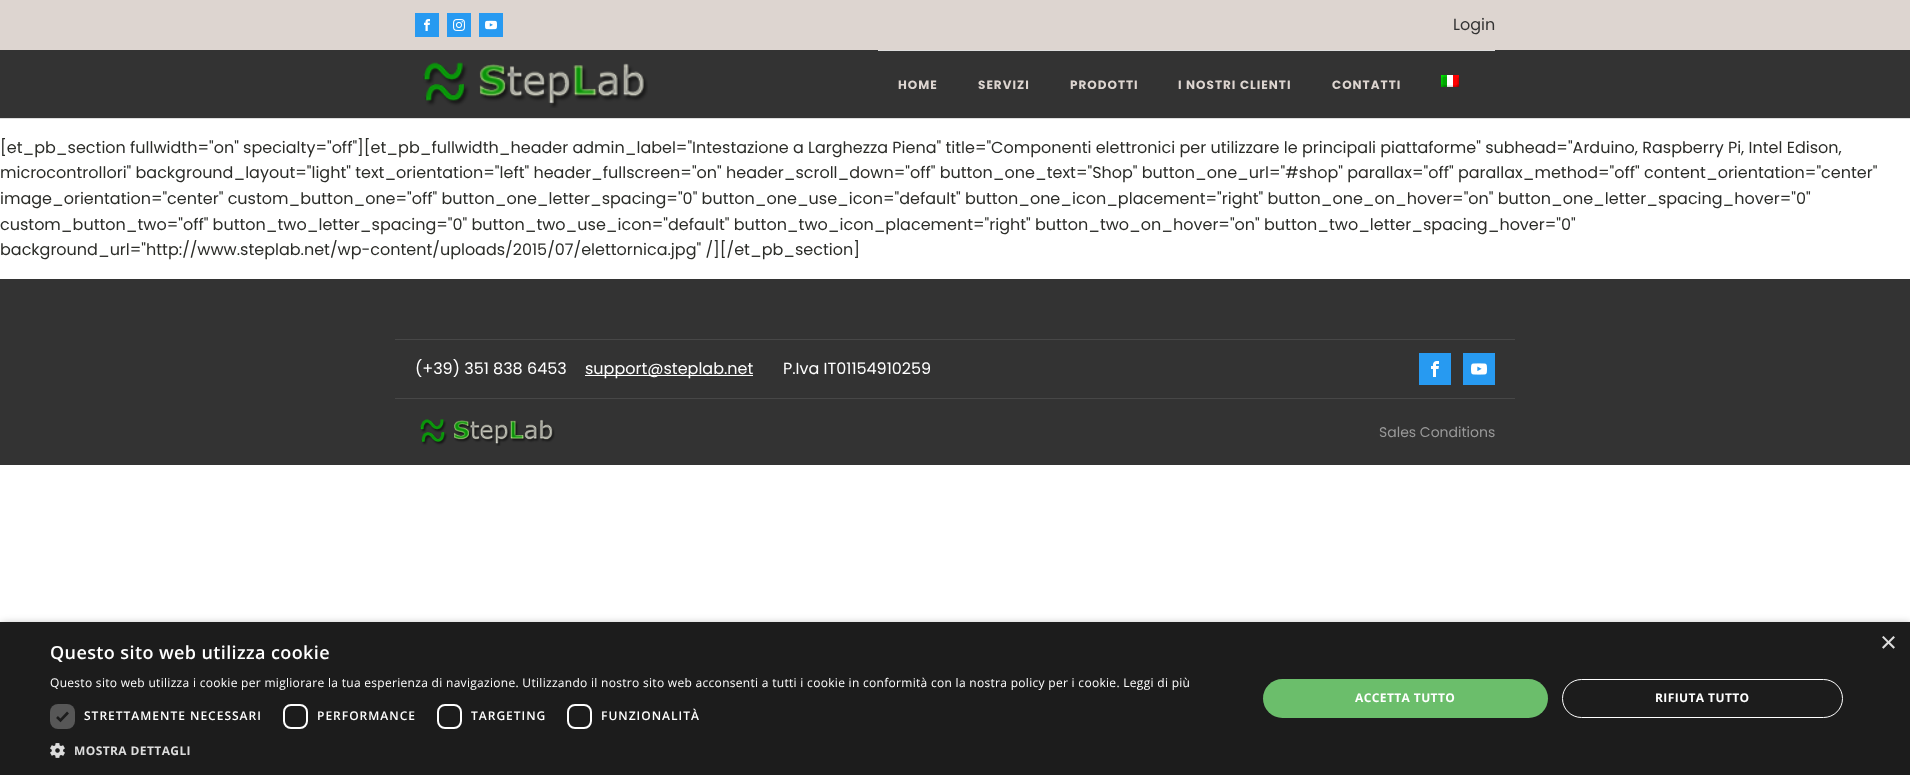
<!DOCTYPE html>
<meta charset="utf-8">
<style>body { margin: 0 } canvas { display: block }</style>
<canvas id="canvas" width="1910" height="775"></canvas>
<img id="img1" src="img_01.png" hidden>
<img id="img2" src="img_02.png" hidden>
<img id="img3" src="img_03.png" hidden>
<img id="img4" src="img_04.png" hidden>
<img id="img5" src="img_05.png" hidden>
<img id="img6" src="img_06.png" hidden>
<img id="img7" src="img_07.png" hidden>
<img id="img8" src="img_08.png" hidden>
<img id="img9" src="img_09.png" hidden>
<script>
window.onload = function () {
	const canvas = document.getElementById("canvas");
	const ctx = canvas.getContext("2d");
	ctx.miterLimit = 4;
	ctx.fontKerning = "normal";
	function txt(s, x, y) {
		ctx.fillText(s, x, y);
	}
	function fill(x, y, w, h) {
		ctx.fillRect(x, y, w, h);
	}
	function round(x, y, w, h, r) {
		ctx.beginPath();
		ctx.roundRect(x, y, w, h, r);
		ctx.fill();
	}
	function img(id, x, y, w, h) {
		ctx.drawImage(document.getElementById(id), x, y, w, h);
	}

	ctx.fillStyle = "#FFFFFF";
	fill(0, 0, 1910, 775);
	ctx.fillStyle = "#DDD5D0";
	fill(0, 0, 1910, 50);
	ctx.fillStyle = "#279AF1";
	fill(415, 13, 24, 24);
	img("img1", 424, 19, 6, 12);
	fill(447, 13, 24, 24);
	img("img2", 453, 19, 12, 12);
	fill(479, 13, 24, 24);
	img("img3", 485, 20, 12, 10);
	ctx.fillStyle = "#333333";
	fill(0, 50, 1910, 68);
	ctx.fillStyle = "#DDDDDD";
	fill(0, 118, 1910, 1);
	img("img4", 423, 62, 225, 46);
	fill(878, 50, 617, 1);
	img("img5", 1441, 75, 18, 12);
	ctx.fillStyle = "#333333";
	fill(0, 279, 1910, 186);
	ctx.fillStyle = "#474747";
	fill(395, 339, 1120, 1);
	ctx.fillStyle = "#FFFFFF";
	fill(585, 375, 168, 1);
	ctx.fillStyle = "#279AF1";
	fill(1419, 353, 32, 32);
	img("img6", 1431, 361, 8, 16);
	fill(1463, 353, 32, 32);
	img("img7", 1471, 363, 16, 12);
	ctx.fillStyle = "#474747";
	fill(395, 398, 1120, 1);
	img("img8", 420, 419, 135, 27);
	ctx.fillStyle = "rgba(0, 0, 0, 0.35)";
	ctx.filter = "blur(4px)";
	ctx.beginPath();
	ctx.rect(1, 624, 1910, 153);
	ctx.fill();
	ctx.filter = "none";
	ctx.fillStyle = "#1C1C1C";
	fill(0, 622, 1910, 153);
	ctx.fillStyle = "#575757";
	round(50, 704, 25, 25, 8);
	ctx.beginPath();
	ctx.moveTo(57, 717);
	ctx.lineTo(60.5, 720.5);
	ctx.lineTo(68, 712.5);
	ctx.strokeStyle = "#1C1C1C";
	ctx.lineWidth = 2.6;
	ctx.stroke();
	ctx.beginPath();
	ctx.roundRect(284, 705, 23, 23, 7);
	ctx.strokeStyle = "#FFFFFF";
	ctx.lineWidth = 2;
	ctx.stroke();
	ctx.beginPath();
	ctx.roundRect(438, 705, 23, 23, 7);
	ctx.stroke();
	ctx.beginPath();
	ctx.roundRect(568, 705, 23, 23, 7);
	ctx.stroke();
	img("img9", 50, 743, 15, 15);
	ctx.fillStyle = "#6BBE6B";
	round(1263, 679, 285, 39, 19.5);
	ctx.beginPath();
	ctx.roundRect(1562.5, 679.5, 280, 38, 19);
	ctx.lineWidth = 1;
	ctx.stroke();
	ctx.font = "16px Poppins";
	ctx.fillStyle = "#333333";
	txt("Login", 1453, 30);
	ctx.letterSpacing = "1px";
	ctx.font = "bold 12px Poppins";
	ctx.fillStyle = "#DDD5D0";
	txt("HOME", 898, 89);
	txt("SERVIZI", 978, 89);
	txt("PRODOTTI", 1070, 89);
	txt("I NOSTRI CLIENTI", 1178, 89);
	txt("CONTATTI", 1332, 89);
	ctx.letterSpacing = "0px";
	ctx.font = "16px Poppins";
	ctx.fillStyle = "#2B2C28";
	txt("[et_pb_section fullwidth=\"on\" specialty=\"off\"][et_pb_fullwidth_header admin_label=\"Intestazione a Larghezza Piena\" title=\"Componenti elettronici per utilizzare le principali piattaforme\" subhead=\"Arduino, Raspberry Pi, Intel Edison,", 0, 153);
	txt("microcontrollori\" background_layout=\"light\" text_orientation=\"left\" header_fullscreen=\"on\" header_scroll_down=\"off\" button_one_text=\"Shop\" button_one_url=\"#shop\" parallax=\"off\" parallax_method=\"off\" content_orientation=\"center\"", 0, 178);
	txt("image_orientation=\"center\" custom_button_one=\"off\" button_one_letter_spacing=\"0\" button_one_use_icon=\"default\" button_one_icon_placement=\"right\" button_one_on_hover=\"on\" button_one_letter_spacing_hover=\"0\"", 0, 204);
	txt("custom_button_two=\"off\" button_two_letter_spacing=\"0\" button_two_use_icon=\"default\" button_two_icon_placement=\"right\" button_two_on_hover=\"on\" button_two_letter_spacing_hover=\"0\"", 0, 230);
	txt("background_url=\"http://www.steplab.net/wp-content/uploads/2015/07/elettornica.jpg\" /][/et_pb_section]", 0, 255);
	ctx.fillStyle = "#FFFFFF";
	txt("(+39) 351 838 6453", 415, 374);
	txt("support@steplab.net", 585, 374);
	txt("P.Iva IT01154910259", 783, 374);
	ctx.font = "14px Poppins";
	ctx.fillStyle = "#999999";
	txt("Sales Conditions", 1379, 437);
	ctx.font = "29px Liberation Sans";
	ctx.fillStyle = "#DDDDDD";
	txt("×", 1880, 652);
	ctx.letterSpacing = "0.4px";
	ctx.font = "600 18px Open Sans";
	ctx.fillStyle = "#FFFFFF";
	txt("Questo sito web utilizza cookie", 50, 659);
	ctx.letterSpacing = "0.3px";
	ctx.font = "12px Open Sans";
	txt("Questo sito web utilizza i cookie per migliorare la tua esperienza di navigazione. Utilizzando il nostro sito web acconsenti a tutti i cookie in conformità con la nostra policy per i cookie. Leggi di più", 50, 687);
	ctx.letterSpacing = "1px";
	ctx.font = "600 12px Open Sans";
	txt("STRETTAMENTE NECESSARI", 84, 720);
	txt("PERFORMANCE", 317, 720);
	txt("TARGETING", 471, 720);
	txt("FUNZIONALITÀ", 601, 720);
	ctx.letterSpacing = "0.4px";
	ctx.font = "bold 12px Open Sans";
	ctx.fillStyle = "#DDDDDD";
	txt("MOSTRA DETTAGLI", 74, 755);
	ctx.fillStyle = "#FFFFFF";
	txt("ACCETTA TUTTO", 1355, 702);
	txt("RIFIUTA TUTTO", 1655, 702);
};
</script>
